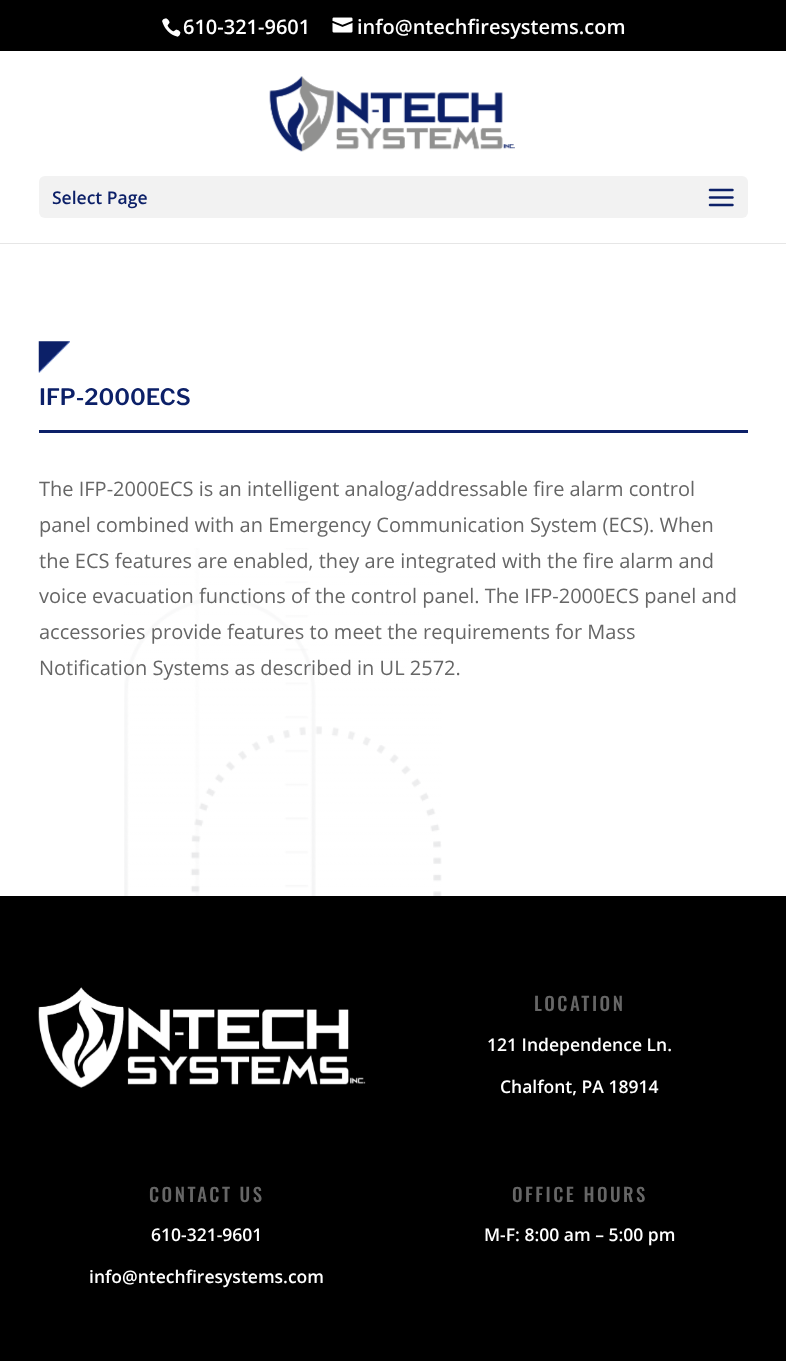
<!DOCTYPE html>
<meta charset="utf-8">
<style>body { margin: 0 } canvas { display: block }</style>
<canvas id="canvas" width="786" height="1361"></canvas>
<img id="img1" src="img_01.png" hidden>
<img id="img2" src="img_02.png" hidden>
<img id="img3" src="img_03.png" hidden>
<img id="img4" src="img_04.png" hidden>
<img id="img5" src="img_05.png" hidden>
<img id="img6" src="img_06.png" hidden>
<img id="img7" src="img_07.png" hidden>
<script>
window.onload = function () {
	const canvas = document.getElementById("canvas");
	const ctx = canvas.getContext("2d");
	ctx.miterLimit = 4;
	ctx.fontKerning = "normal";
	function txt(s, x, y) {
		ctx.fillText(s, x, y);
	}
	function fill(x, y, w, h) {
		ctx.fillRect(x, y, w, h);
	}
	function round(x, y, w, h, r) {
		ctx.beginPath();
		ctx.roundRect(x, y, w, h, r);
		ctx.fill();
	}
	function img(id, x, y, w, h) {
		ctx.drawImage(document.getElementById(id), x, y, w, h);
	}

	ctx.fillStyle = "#FFFFFF";
	fill(0, 0, 786, 1361);
	ctx.fillStyle = "#000000";
	fill(0, 0, 786, 51);
	img("img1", 162, 18, 19, 19);
	img("img2", 332, 17, 21, 16);
	ctx.fillStyle = "#E6E6E6";
	fill(0, 243, 786, 1);
	img("img3", 269, 76, 246, 76);
	ctx.fillStyle = "#F2F2F2";
	round(39, 176, 709, 42, 6);
	img("img4", 708, 188, 26, 19);
	img("img5", 124, 548, 318, 348);
	img("img6", 38, 341, 32, 32);
	ctx.fillStyle = "#0C2068";
	fill(39, 430, 709, 3);
	ctx.fillStyle = "#000000";
	fill(0, 896, 786, 465);
	img("img7", 38, 987, 328, 101);
	ctx.font = "600 20px Open Sans";
	ctx.fillStyle = "#FFFFFF";
	txt("610-321-9601", 183, 34);
	txt("info@ntechfiresystems.com", 357, 34);
	ctx.font = "600 17.5px Open Sans";
	ctx.fillStyle = "#0C2068";
	txt("Select Page", 52, 204);
	ctx.font = "600 22.5px Libre Franklin";
	txt("IFP-2000ECS", 39, 405);
	ctx.font = "20px Open Sans";
	ctx.fillStyle = "#666666";
	txt("The IFP-2000ECS is an intelligent analog/addressable fire alarm control", 39, 496);
	txt("panel combined with an Emergency Communication System (ECS). When", 39, 532);
	txt("the ECS features are enabled, they are integrated with the fire alarm and", 39, 568);
	txt("voice evacuation functions of the control panel. The IFP-2000ECS panel and", 39, 603);
	txt("accessories provide features to meet the requirements for Mass", 39, 639);
	txt("Notification Systems as described in UL 2572.", 39, 675);
	ctx.letterSpacing = "2.5px";
	ctx.font = "500 18.75px Oswald";
	txt("LOCATION", 534, 1011);
	ctx.letterSpacing = "0px";
	ctx.font = "600 17.5px Open Sans";
	ctx.fillStyle = "#FFFFFF";
	txt("121 Independence Ln.", 487, 1051);
	txt("Chalfont, PA 18914", 500, 1093);
	ctx.letterSpacing = "2.5px";
	ctx.font = "500 18.75px Oswald";
	ctx.fillStyle = "#666666";
	txt("CONTACT US", 149, 1202);
	ctx.letterSpacing = "0px";
	ctx.font = "600 17.5px Open Sans";
	ctx.fillStyle = "#FFFFFF";
	txt("610-321-9601", 151, 1241);
	txt("info@ntechfiresystems.com", 89, 1283);
	ctx.letterSpacing = "2.5px";
	ctx.font = "500 18.75px Oswald";
	ctx.fillStyle = "#666666";
	txt("OFFICE HOURS", 512, 1202);
	ctx.letterSpacing = "0px";
	ctx.font = "600 17.5px Open Sans";
	ctx.fillStyle = "#FFFFFF";
	txt("M-F: 8:00 am – 5:00 pm", 484, 1241);
};
</script>
